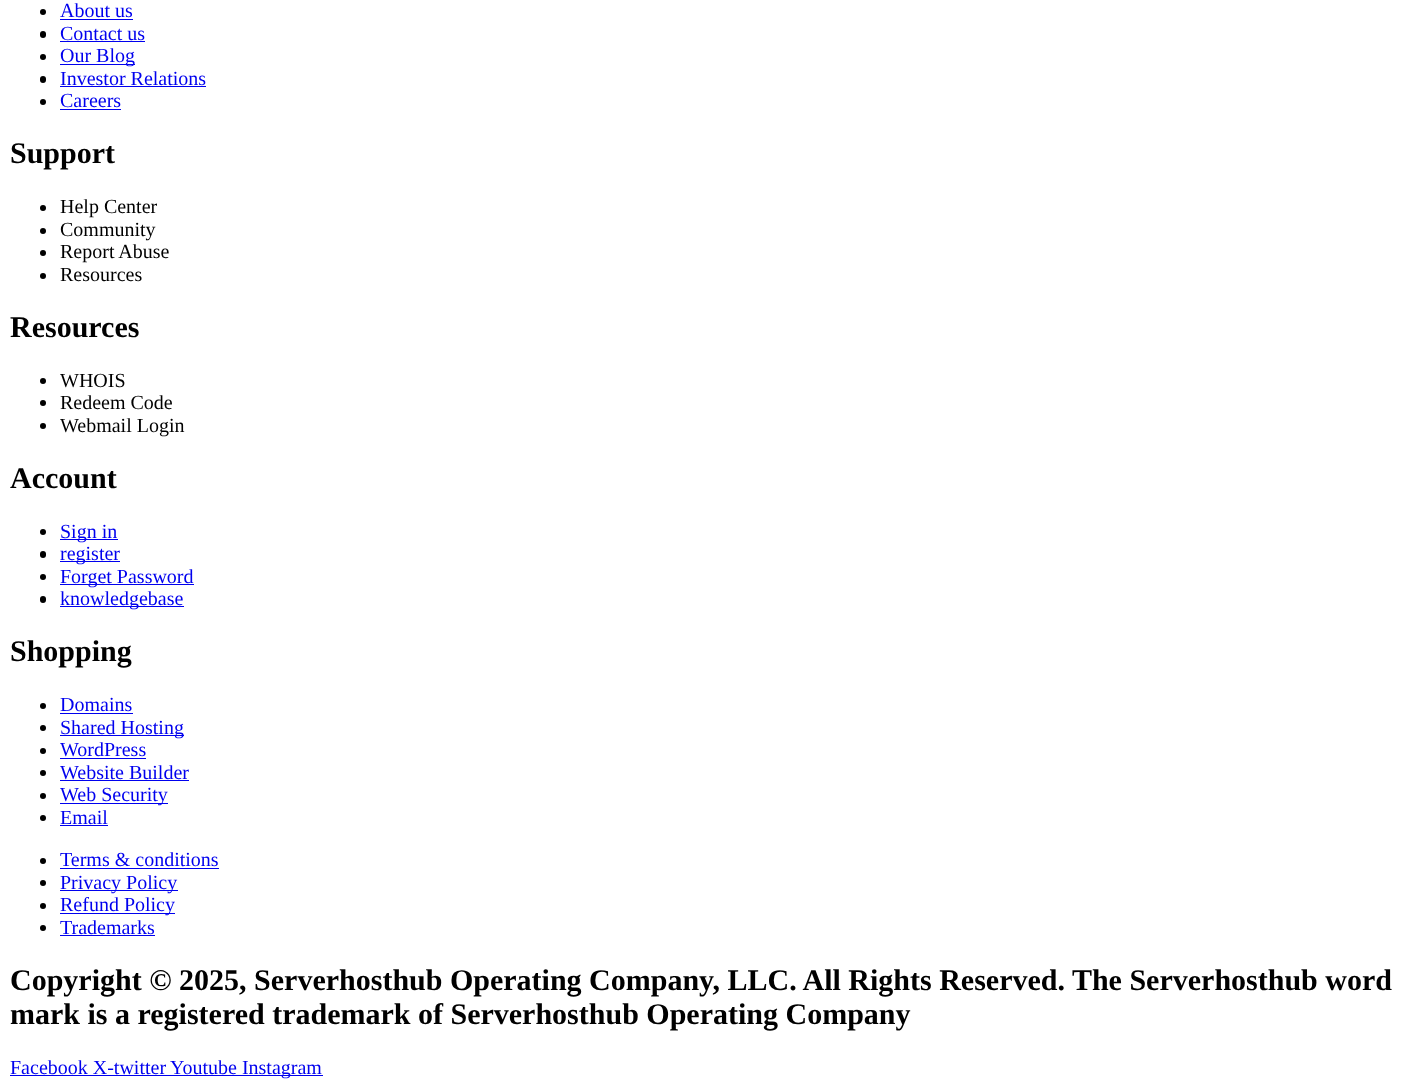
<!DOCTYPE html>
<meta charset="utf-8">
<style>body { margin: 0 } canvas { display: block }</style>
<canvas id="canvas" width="1421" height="1088"></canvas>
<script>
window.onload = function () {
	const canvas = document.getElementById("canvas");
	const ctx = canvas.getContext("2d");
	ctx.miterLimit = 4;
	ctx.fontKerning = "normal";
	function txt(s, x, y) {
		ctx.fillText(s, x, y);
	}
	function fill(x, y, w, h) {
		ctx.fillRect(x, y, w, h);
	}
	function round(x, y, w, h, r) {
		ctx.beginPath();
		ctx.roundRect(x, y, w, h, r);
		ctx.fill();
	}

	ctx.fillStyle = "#FFFFFF";
	fill(0, 0, 1421, 1088);
	ctx.fillStyle = "#000000";
	ctx.beginPath();
	ctx.arc(43, 12, 3, 0, Math.PI * 2);
	ctx.fill();
	ctx.fillStyle = "#0000EE";
	fill(60, 19, 73, 1);
	ctx.fillStyle = "#000000";
	round(40, 31, 6, 7, 3);
	ctx.fillStyle = "#0000EE";
	fill(60, 41, 85, 1);
	ctx.fillStyle = "#000000";
	ctx.beginPath();
	ctx.arc(43, 57, 3, 0, Math.PI * 2);
	ctx.fill();
	ctx.fillStyle = "#0000EE";
	fill(60, 64, 75, 1);
	ctx.fillStyle = "#000000";
	round(40, 76, 6, 7, 3);
	ctx.fillStyle = "#0000EE";
	fill(60, 86, 146, 1);
	ctx.fillStyle = "#000000";
	ctx.beginPath();
	ctx.arc(43, 102, 3, 0, Math.PI * 2);
	ctx.fill();
	ctx.fillStyle = "#0000EE";
	fill(60, 109, 61, 1);
	ctx.fillStyle = "#000000";
	ctx.beginPath();
	ctx.arc(43, 208, 3, 0, Math.PI * 2);
	ctx.fill();
	ctx.beginPath();
	ctx.arc(43, 231, 3, 0, Math.PI * 2);
	ctx.fill();
	ctx.beginPath();
	ctx.arc(43, 253, 3, 0, Math.PI * 2);
	ctx.fill();
	ctx.beginPath();
	ctx.arc(43, 276, 3, 0, Math.PI * 2);
	ctx.fill();
	ctx.beginPath();
	ctx.arc(43, 381, 3, 0, Math.PI * 2);
	ctx.fill();
	ctx.beginPath();
	ctx.arc(43, 403, 3, 0, Math.PI * 2);
	ctx.fill();
	ctx.beginPath();
	ctx.arc(43, 426, 3, 0, Math.PI * 2);
	ctx.fill();
	ctx.beginPath();
	ctx.arc(43, 532, 3, 0, Math.PI * 2);
	ctx.fill();
	ctx.fillStyle = "#0000EE";
	fill(60, 539, 58, 1);
	ctx.fillStyle = "#000000";
	round(40, 551, 6, 7, 3);
	ctx.fillStyle = "#0000EE";
	fill(60, 561, 60, 1);
	ctx.fillStyle = "#000000";
	ctx.beginPath();
	ctx.arc(43, 577, 3, 0, Math.PI * 2);
	ctx.fill();
	ctx.fillStyle = "#0000EE";
	fill(60, 584, 134, 1);
	ctx.fillStyle = "#000000";
	round(40, 596, 6, 7, 3);
	ctx.fillStyle = "#0000EE";
	fill(60, 606, 124, 1);
	ctx.fillStyle = "#000000";
	ctx.beginPath();
	ctx.arc(43, 706, 3, 0, Math.PI * 2);
	ctx.fill();
	ctx.fillStyle = "#0000EE";
	fill(60, 713, 73, 1);
	ctx.fillStyle = "#000000";
	ctx.beginPath();
	ctx.arc(43, 728, 3, 0, Math.PI * 2);
	ctx.fill();
	ctx.fillStyle = "#0000EE";
	fill(60, 735, 124, 1);
	ctx.fillStyle = "#000000";
	ctx.beginPath();
	ctx.arc(43, 751, 3, 0, Math.PI * 2);
	ctx.fill();
	ctx.fillStyle = "#0000EE";
	fill(60, 758, 86, 1);
	ctx.fillStyle = "#000000";
	ctx.beginPath();
	ctx.arc(43, 773, 3, 0, Math.PI * 2);
	ctx.fill();
	ctx.fillStyle = "#0000EE";
	fill(60, 780, 129, 1);
	ctx.fillStyle = "#000000";
	ctx.beginPath();
	ctx.arc(43, 796, 3, 0, Math.PI * 2);
	ctx.fill();
	ctx.fillStyle = "#0000EE";
	fill(60, 803, 108, 1);
	ctx.fillStyle = "#000000";
	ctx.beginPath();
	ctx.arc(43, 818, 3, 0, Math.PI * 2);
	ctx.fill();
	ctx.fillStyle = "#0000EE";
	fill(60, 825, 48, 1);
	ctx.fillStyle = "#000000";
	ctx.beginPath();
	ctx.arc(43, 861, 3, 0, Math.PI * 2);
	ctx.fill();
	ctx.fillStyle = "#0000EE";
	fill(60, 868, 159, 1);
	ctx.fillStyle = "#000000";
	ctx.beginPath();
	ctx.arc(43, 883, 3, 0, Math.PI * 2);
	ctx.fill();
	ctx.fillStyle = "#0000EE";
	fill(60, 890, 118, 1);
	ctx.fillStyle = "#000000";
	ctx.beginPath();
	ctx.arc(43, 906, 3, 0, Math.PI * 2);
	ctx.fill();
	ctx.fillStyle = "#0000EE";
	fill(60, 913, 115, 1);
	ctx.fillStyle = "#000000";
	ctx.beginPath();
	ctx.arc(43, 928, 3, 0, Math.PI * 2);
	ctx.fill();
	ctx.fillStyle = "#0000EE";
	fill(60, 935, 95, 1);
	fill(10, 1075, 313, 1);
	ctx.font = "20px Liberation Serif";
	txt("About us", 60, 17);
	txt("Contact us", 60, 40);
	txt("Our Blog", 60, 62);
	txt("Investor Relations", 60, 85);
	txt("Careers", 60, 107);
	ctx.font = "bold 30px Liberation Serif";
	ctx.fillStyle = "#000000";
	txt("Support", 10, 163);
	ctx.font = "20px Liberation Serif";
	txt("Help Center", 60, 213);
	txt("Community", 60, 236);
	txt("Report Abuse", 60, 258);
	txt("Resources", 60, 281);
	ctx.font = "bold 30px Liberation Serif";
	txt("Resources", 10, 337);
	ctx.font = "20px Liberation Serif";
	txt("WHOIS", 60, 387);
	txt("Redeem Code", 60, 409);
	txt("Webmail Login", 60, 432);
	ctx.font = "bold 30px Liberation Serif";
	txt("Account", 10, 488);
	ctx.font = "20px Liberation Serif";
	ctx.fillStyle = "#0000EE";
	txt("Sign in", 60, 538);
	txt("register", 60, 560);
	txt("Forget Password", 60, 583);
	txt("knowledgebase", 60, 605);
	ctx.font = "bold 30px Liberation Serif";
	ctx.fillStyle = "#000000";
	txt("Shopping", 10, 661);
	ctx.font = "20px Liberation Serif";
	ctx.fillStyle = "#0000EE";
	txt("Domains", 60, 711);
	txt("Shared Hosting", 60, 734);
	txt("WordPress", 60, 756);
	txt("Website Builder", 60, 779);
	txt("Web Security", 60, 801);
	txt("Email", 60, 824);
	txt("Terms & conditions", 60, 866);
	txt("Privacy Policy", 60, 889);
	txt("Refund Policy", 60, 911);
	txt("Trademarks", 60, 934);
	ctx.font = "bold 30px Liberation Serif";
	ctx.fillStyle = "#000000";
	txt("Copyright © 2025, Serverhosthub Operating Company, LLC. All Rights Reserved. The Serverhosthub word", 10, 990);
	txt("mark is a registered trademark of Serverhosthub Operating Company", 10, 1024);
	ctx.font = "20px Liberation Serif";
	ctx.fillStyle = "#0000EE";
	txt("Facebook X-twitter", 10, 1074);
	txt("Youtube Instagram", 170, 1074);
};
</script>
